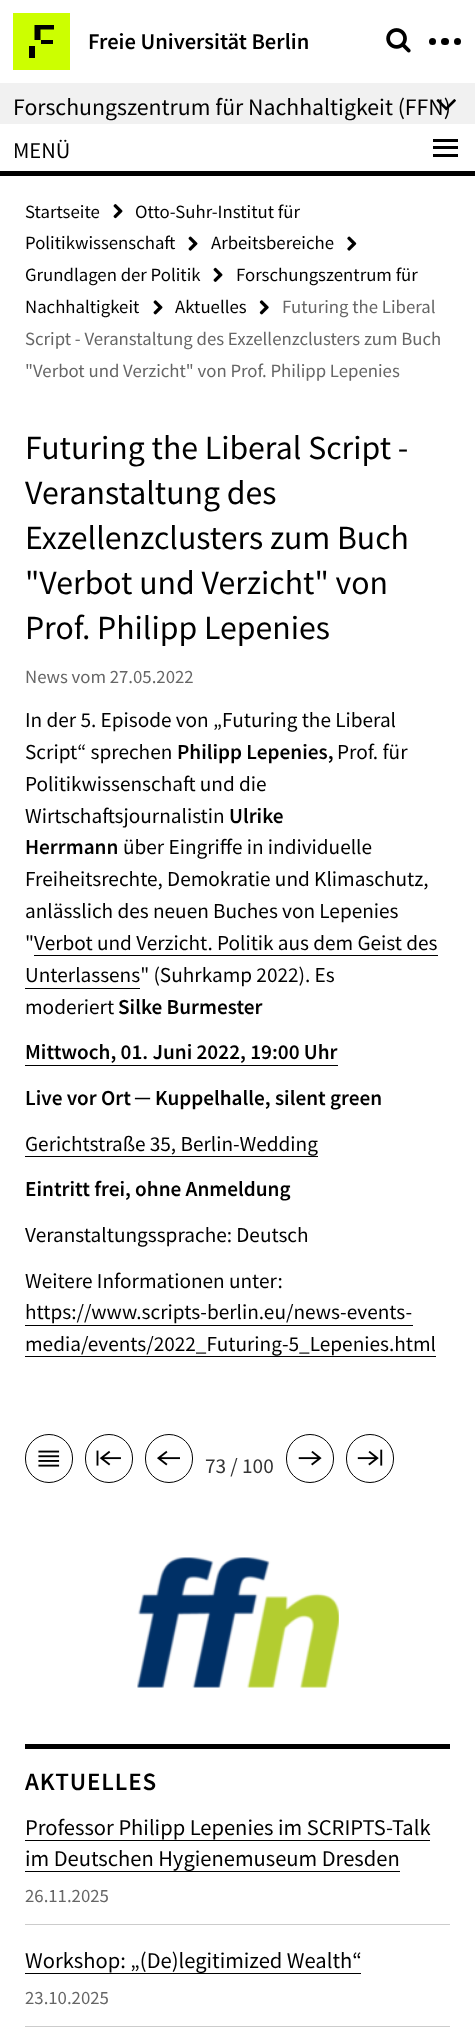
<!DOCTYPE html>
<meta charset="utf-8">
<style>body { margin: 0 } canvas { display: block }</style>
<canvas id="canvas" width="475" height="2040"></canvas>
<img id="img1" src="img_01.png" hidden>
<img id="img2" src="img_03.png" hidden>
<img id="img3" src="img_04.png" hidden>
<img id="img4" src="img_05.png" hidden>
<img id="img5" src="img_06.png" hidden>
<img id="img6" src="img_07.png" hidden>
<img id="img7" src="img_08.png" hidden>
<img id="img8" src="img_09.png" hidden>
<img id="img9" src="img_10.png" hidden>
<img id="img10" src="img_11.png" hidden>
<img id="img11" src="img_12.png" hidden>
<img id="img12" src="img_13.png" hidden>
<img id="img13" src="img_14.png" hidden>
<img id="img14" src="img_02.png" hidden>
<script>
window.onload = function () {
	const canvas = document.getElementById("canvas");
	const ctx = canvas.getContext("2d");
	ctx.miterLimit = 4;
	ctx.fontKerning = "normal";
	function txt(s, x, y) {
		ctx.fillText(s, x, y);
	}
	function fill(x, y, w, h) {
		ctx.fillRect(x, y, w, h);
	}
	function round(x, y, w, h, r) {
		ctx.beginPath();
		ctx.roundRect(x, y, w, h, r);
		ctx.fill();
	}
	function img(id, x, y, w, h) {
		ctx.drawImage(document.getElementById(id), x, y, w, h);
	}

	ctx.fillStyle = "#FFFFFF";
	fill(0, 0, 475, 2040);
	ctx.fillStyle = "#CCFF00";
	fill(13, 13, 57, 57);
	ctx.fillStyle = "#000000";
	ctx.beginPath();
	ctx.moveTo(34.5, 25);
	ctx.lineTo(54, 25);
	ctx.lineTo(54, 29.5);
	ctx.lineTo(40.5, 29.5);
	ctx.lineTo(40.5, 40);
	ctx.lineTo(34.5, 40);
	ctx.closePath();
	ctx.fill();
	fill(41, 40, 12, 4);
	fill(29, 46, 6, 12);
	img("img1", 386, 28, 25, 25);
	ctx.beginPath();
	ctx.arc(432.5, 41.5, 3.5, 0, Math.PI * 2);
	ctx.fill();
	round(441, 38, 8, 7, 3.5);
	ctx.beginPath();
	ctx.arc(457.5, 41.5, 3.5, 0, Math.PI * 2);
	ctx.fill();
	ctx.fillStyle = "#F1F1F1";
	fill(0, 83, 475, 41);
	ctx.fillStyle = "#000000";
	fill(0, 171, 475, 5);
	fill(433, 139, 25, 3);
	fill(433, 146, 25, 3);
	fill(433, 154, 25, 3);
	img("img2", 188, 236, 10, 15);
	img("img3", 113, 204, 10, 15);
	img("img4", 347, 236, 10, 15);
	img("img5", 213, 267, 10, 15);
	img("img6", 153, 300, 10, 15);
	img("img7", 259, 300, 10, 15);
	fill(34, 955, 404, 1);
	fill(25, 988, 115, 1);
	fill(25, 1065, 313, 1);
	fill(25, 1156, 293, 1);
	fill(25, 1325, 388, 1);
	fill(25, 1356, 411, 1);
	ctx.beginPath();
	ctx.roundRect(25.5, 1434.5, 47, 48, 23.5);
	ctx.strokeStyle = "#000000";
	ctx.stroke();
	img("img8", 38, 1450, 22, 17);
	ctx.beginPath();
	ctx.roundRect(85.5, 1434.5, 47, 48, 23.5);
	ctx.stroke();
	img("img9", 96, 1450, 25, 16);
	ctx.beginPath();
	ctx.roundRect(145.5, 1434.5, 47, 48, 23.5);
	ctx.stroke();
	img("img10", 157, 1450, 23, 16);
	ctx.beginPath();
	ctx.roundRect(286.5, 1434.5, 47, 48, 23.5);
	ctx.stroke();
	img("img11", 298, 1451, 24, 15);
	ctx.beginPath();
	ctx.roundRect(346.5, 1434.5, 47, 48, 23.5);
	ctx.stroke();
	img("img12", 357, 1449, 26, 17);
	img("img13", 137, 1557, 202, 131);
	fill(25, 1744, 425, 5);
	ctx.fillStyle = "#CCCCCC";
	fill(25, 1924, 425, 1);
	ctx.fillStyle = "#000000";
	fill(25, 1840, 405, 1);
	fill(25, 1871, 375, 1);
	ctx.fillStyle = "#CCCCCC";
	fill(25, 2026, 425, 1);
	ctx.fillStyle = "#000000";
	fill(25, 1973, 336, 1);
	ctx.font = "600 22.5px Source Sans Pro";
	txt("Freie Universität Berlin", 88, 49);
	ctx.font = "23.75px Source Sans Pro";
	txt("Forschungszentrum für Nachhaltigkeit (FFN)", 13, 115);
	img("img14", 436, 99, 20, 12);
	ctx.font = "22.5px Source Sans Pro";
	txt("MENÜ", 13, 158);
	ctx.font = "18.75px Source Sans Pro";
	txt("Otto-Suhr-Institut für", 135, 218);
	txt("Politikwissenschaft", 25, 249);
	txt("Startseite", 25, 218);
	txt("Arbeitsbereiche", 211, 249);
	txt("Grundlagen der Politik", 25, 281);
	txt("Forschungszentrum für", 236, 281);
	txt("Nachhaltigkeit", 25, 313);
	txt("Aktuelles", 175, 313);
	ctx.fillStyle = "#666666";
	txt("Futuring the Liberal", 282, 313);
	txt("Script - Veranstaltung des Exzellenzclusters zum Buch", 25, 345);
	txt("\"Verbot und Verzicht\" von Prof. Philipp Lepenies", 25, 377);
	ctx.font = "33.75px Source Sans Pro";
	ctx.fillStyle = "#000000";
	txt("Futuring the Liberal Script -", 25, 459);
	txt("Veranstaltung des", 25, 504);
	txt("Exzellenzclusters zum Buch", 25, 549);
	txt("\"Verbot und Verzicht\" von", 25, 594);
	txt("Prof. Philipp Lepenies", 25, 639);
	ctx.font = "18.75px Source Sans Pro";
	ctx.fillStyle = "#666666";
	txt("News vom 27.05.2022", 25, 683);
	ctx.font = "21.25px Source Sans Pro";
	ctx.fillStyle = "#000000";
	txt("In der 5. Episode von „Futuring the Liberal", 25, 727);
	txt("Script“ sprechen", 25, 759);
	ctx.font = "600 21.25px Source Sans Pro";
	txt("Philipp Lepenies,", 177, 759);
	ctx.font = "21.25px Source Sans Pro";
	txt("Prof. für", 337, 759);
	txt("Politikwissenschaft und die", 25, 791);
	txt("Wirtschaftsjournalistin", 25, 823);
	ctx.font = "600 21.25px Source Sans Pro";
	txt("Ulrike", 229, 823);
	txt("Herrmann", 25, 854);
	ctx.font = "21.25px Source Sans Pro";
	txt("über Eingriffe in individuelle", 123, 854);
	txt("Freiheitsrechte, Demokratie und Klimaschutz,", 25, 886);
	txt("anlässlich des neuen Buches von Lepenies", 25, 918);
	txt("\"Verbot und Verzicht. Politik aus dem Geist des", 25, 950);
	txt("Unterlassens\" (Suhrkamp 2022). Es", 25, 982);
	txt("moderiert", 25, 1014);
	ctx.font = "600 21.25px Source Sans Pro";
	txt("Silke Burmester", 118, 1014);
	txt("Mittwoch, 01. Juni 2022, 19:00 Uhr", 25, 1059);
	txt("Live vor Ort", 25, 1105);
	ctx.font = "bold 21.25px Liberation Sans";
	txt("─", 135, 1105);
	ctx.font = "600 21.25px Source Sans Pro";
	txt("Kuppelhalle, silent green", 155, 1105);
	ctx.font = "21.25px Source Sans Pro";
	txt("Gerichtstraße 35, Berlin-Wedding", 25, 1151);
	ctx.font = "600 21.25px Source Sans Pro";
	txt("Eintritt frei, ohne Anmeldung", 25, 1196);
	ctx.font = "21.25px Source Sans Pro";
	txt("Veranstaltungssprache: Deutsch", 25, 1242);
	txt("Weitere Informationen unter:", 25, 1288);
	txt("https://www.scripts-berlin.eu/news-events-", 25, 1319);
	txt("media/events/2022_Futuring-5_Lepenies.html", 25, 1351);
	ctx.fillStyle = "#333333";
	txt("73 / 100", 205, 1473);
	ctx.letterSpacing = "0.9px";
	ctx.font = "600 25px Source Sans Pro";
	ctx.fillStyle = "#000000";
	txt("AKTUELLES", 25, 1790);
	ctx.letterSpacing = "0px";
	ctx.font = "22.5px Source Sans Pro";
	txt("Professor Philipp Lepenies im SCRIPTS-Talk", 25, 1835);
	txt("im Deutschen Hygienemuseum Dresden", 25, 1866);
	ctx.font = "18.75px Source Sans Pro";
	ctx.fillStyle = "#666666";
	txt("26.11.2025", 25, 1902);
	ctx.font = "22.5px Source Sans Pro";
	ctx.fillStyle = "#000000";
	txt("Workshop: „(De)legitimized Wealth“", 25, 1968);
	ctx.font = "18.75px Source Sans Pro";
	ctx.fillStyle = "#666666";
	txt("23.10.2025", 25, 2004);
};
</script>
